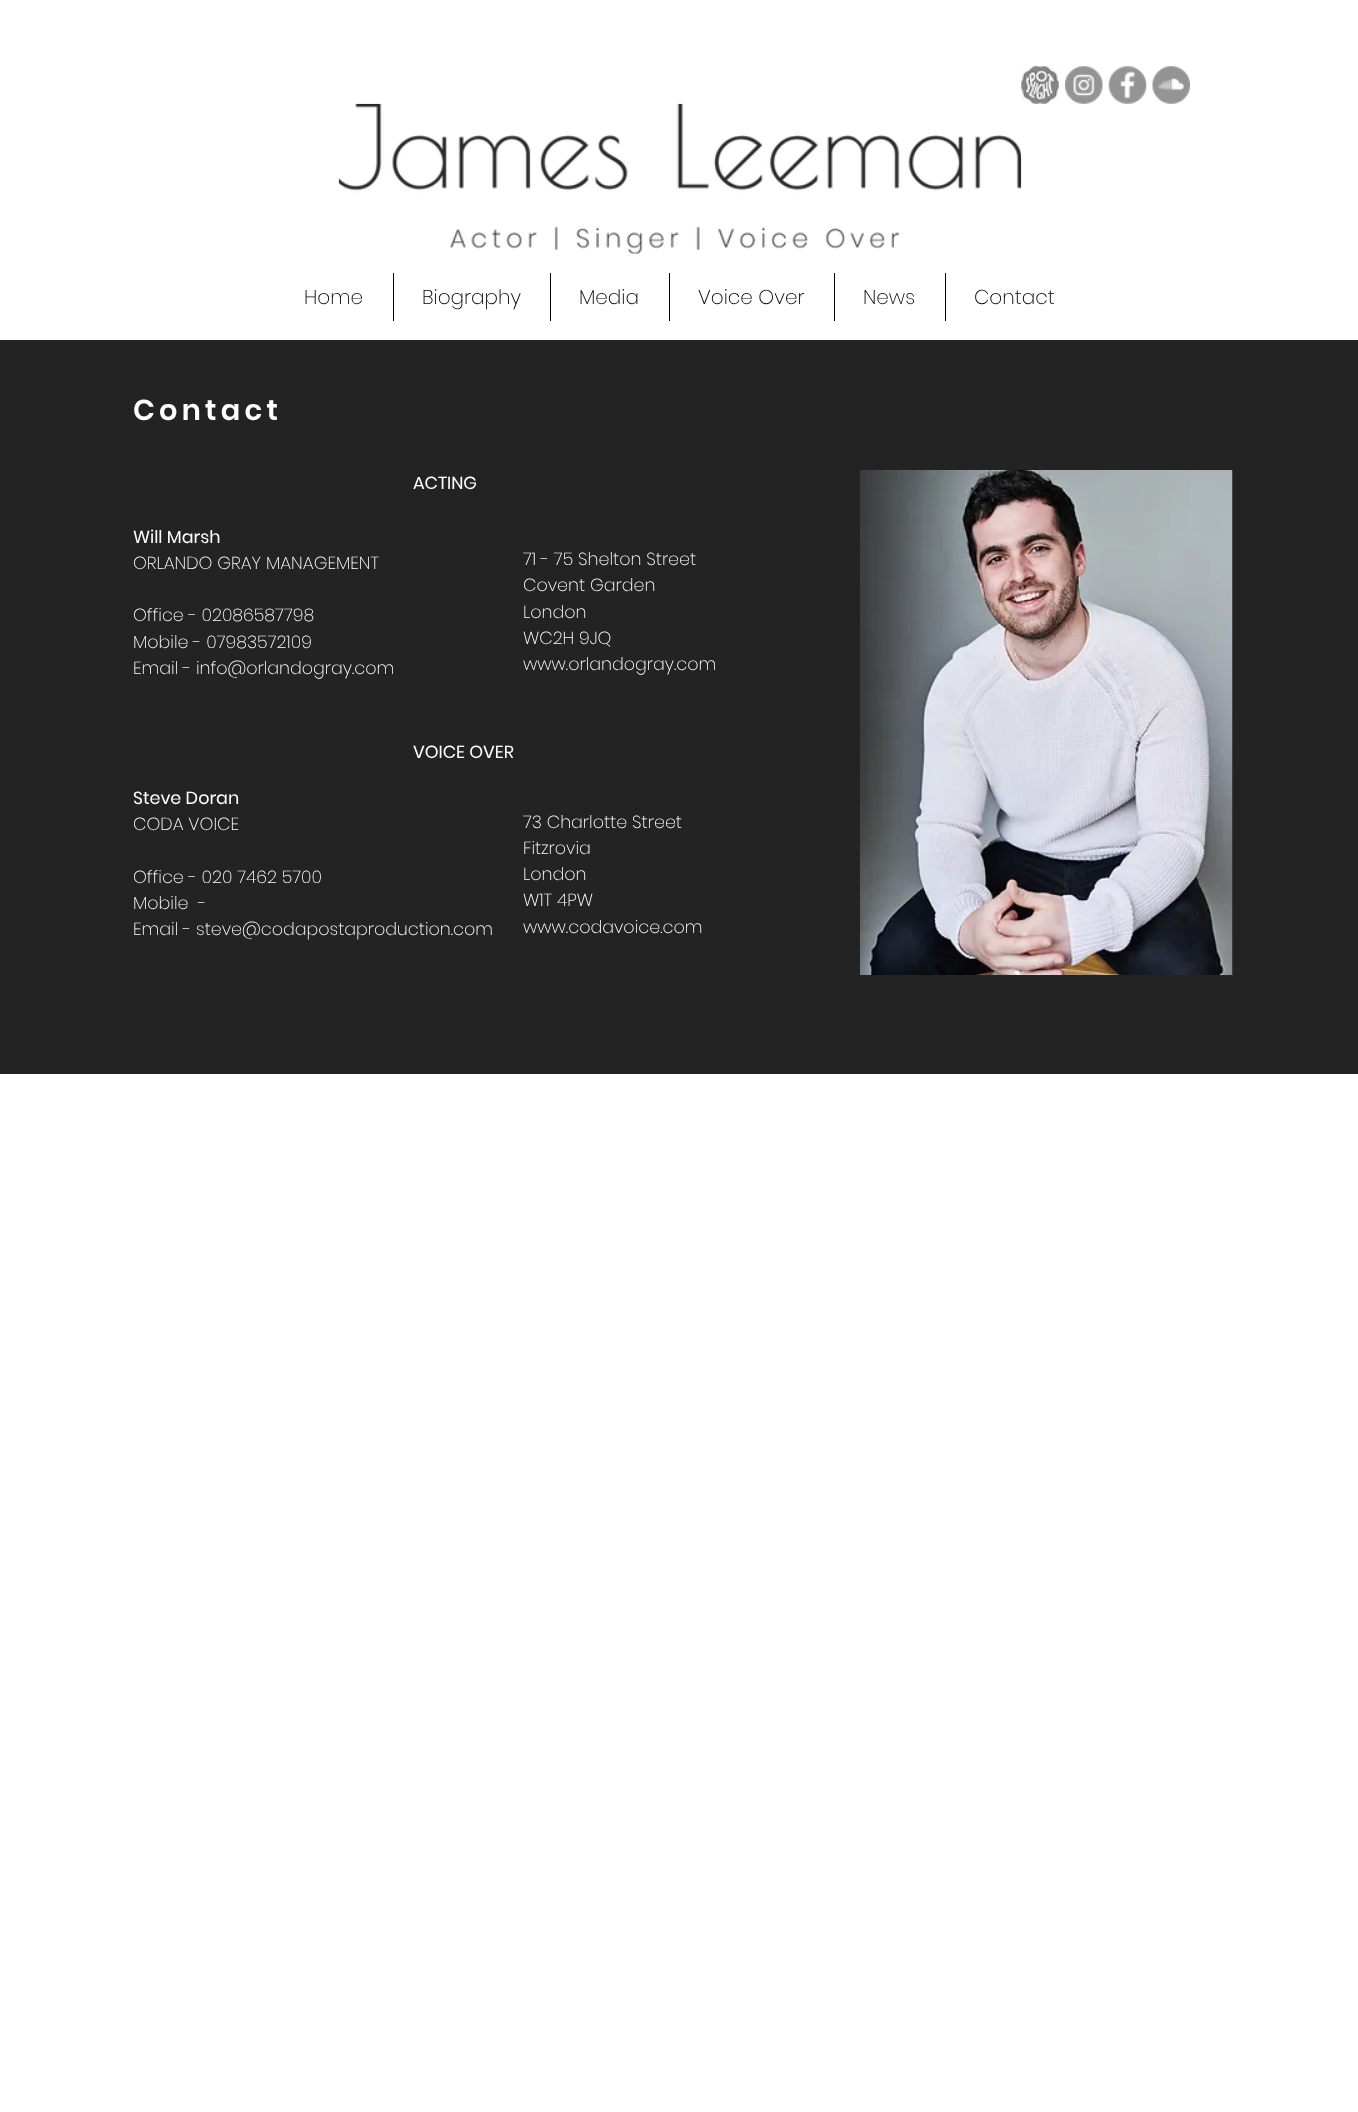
<!DOCTYPE html>
<meta charset="utf-8">
<style>body { margin: 0 } canvas { display: block }</style>
<canvas id="canvas" width="1358" height="2112"></canvas>
<img id="img1" src="img_01.png" hidden>
<img id="img2" src="img_02.png" hidden>
<img id="img3" src="img_03.png" hidden>
<img id="img4" src="img_04.png" hidden>
<img id="img5" src="img_05.png" hidden>
<img id="img6" src="img_06.png" hidden>
<script>
window.onload = function () {
	const canvas = document.getElementById("canvas");
	const ctx = canvas.getContext("2d");
	ctx.miterLimit = 4;
	ctx.fontKerning = "normal";
	function txt(s, x, y) {
		ctx.fillText(s, x, y);
	}
	function fill(x, y, w, h) {
		ctx.fillRect(x, y, w, h);
	}
	function img(id, x, y, w, h) {
		ctx.drawImage(document.getElementById(id), x, y, w, h);
	}

	ctx.fillStyle = "#FFFFFF";
	fill(0, 0, 1358, 2112);
	img("img1", 1021, 66, 38, 38);
	img("img2", 1065, 66, 38, 38);
	img("img3", 1108, 66, 39, 38);
	img("img4", 1152, 66, 38, 38);
	img("img5", 338, 103, 684, 151);
	ctx.fillStyle = "#000000";
	fill(393, 273, 1, 48);
	fill(550, 273, 1, 48);
	fill(669, 273, 1, 48);
	fill(834, 273, 1, 48);
	fill(945, 273, 1, 48);
	ctx.fillStyle = "#242323";
	fill(0, 340, 1358, 734);
	img("img6", 860, 470, 373, 505);
	ctx.font = "200 20px Poppins";
	ctx.fillStyle = "#000000";
	txt("Home", 304, 304);
	txt("Biography", 422, 304);
	txt("Media", 579, 304);
	txt("Voice Over", 698, 304);
	txt("News", 863, 304);
	txt("Contact", 974, 304);
	ctx.letterSpacing = "4.25px";
	ctx.font = "600 28.75px Poppins";
	ctx.fillStyle = "#FFFFFF";
	txt("Contact", 133, 420);
	ctx.letterSpacing = "0px";
	ctx.font = "17.5px Poppins";
	txt("ACTING", 413, 489);
	txt("Will Marsh", 133, 543);
	ctx.font = "200 17.5px Poppins";
	txt("ORLANDO GRAY MANAGEMENT", 133, 569);
	txt("Office - 02086587798", 133, 621);
	txt("Mobile - 07983572109", 133, 648);
	txt("Email - info@orlandogray.com", 133, 674);
	txt("71 - 75 Shelton Street", 523, 565);
	txt("Covent Garden", 523, 591);
	txt("London", 523, 618);
	txt("WC2H 9JQ", 523, 644);
	txt("www.orlandogray.com", 523, 670);
	ctx.font = "17.5px Poppins";
	txt("VOICE OVER", 413, 758);
	txt("Steve Doran", 133, 804);
	ctx.font = "200 17.5px Poppins";
	txt("CODA VOICE", 133, 830);
	txt("Office - 020 7462 5700", 133, 883);
	txt("Mobile  -", 133, 909);
	txt("Email - steve@codapostaproduction.com", 133, 935);
	txt("73 Charlotte Street", 523, 828);
	txt("Fitzrovia", 523, 854);
	txt("London", 523, 880);
	txt("W1T 4PW", 523, 906);
	txt("www.codavoice.com", 523, 933);
};
</script>
